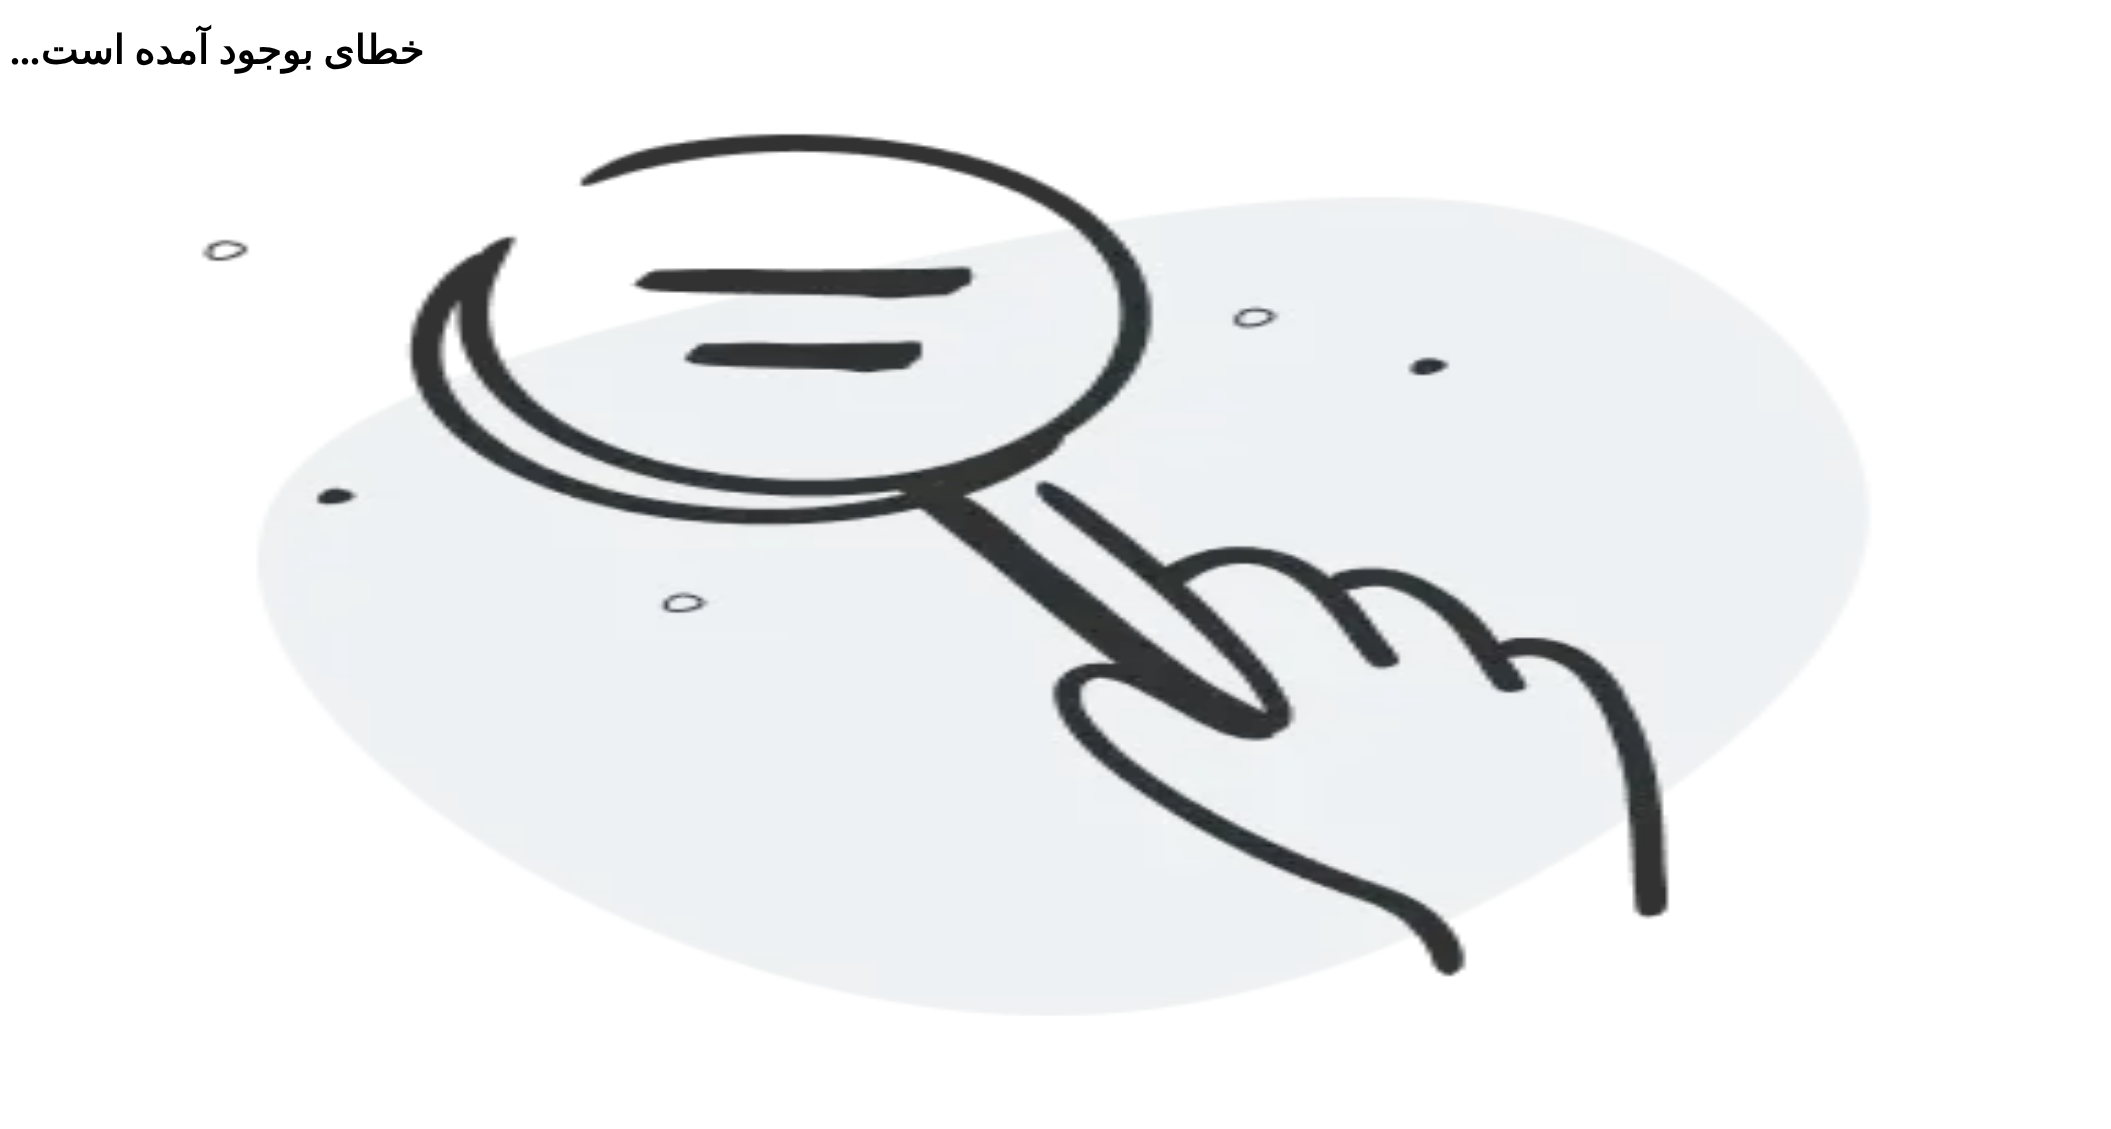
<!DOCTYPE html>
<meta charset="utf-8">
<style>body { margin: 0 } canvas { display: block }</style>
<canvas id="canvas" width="2111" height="1129"></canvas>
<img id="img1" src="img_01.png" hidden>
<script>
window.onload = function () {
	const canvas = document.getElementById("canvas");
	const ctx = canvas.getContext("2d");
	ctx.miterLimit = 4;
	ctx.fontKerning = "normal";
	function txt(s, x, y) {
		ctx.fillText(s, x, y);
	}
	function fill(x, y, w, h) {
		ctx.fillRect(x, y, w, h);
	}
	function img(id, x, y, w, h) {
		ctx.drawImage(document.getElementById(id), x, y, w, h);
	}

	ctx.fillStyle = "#FFFFFF";
	fill(0, 0, 2111, 1129);
	img("img1", 201, 133, 1671, 883);
	ctx.wordSpacing = "-3px";
	ctx.direction = "rtl";
	ctx.font = "bold 40px DejaVu Sans";
	ctx.fillStyle = "#000000";
	txt("خطای بوجود آمده است", 424, 64);
	ctx.wordSpacing = "0px";
	ctx.direction = "ltr";
	ctx.font = "bold 40px Liberation Serif";
	txt("...", 10, 64);
};
</script>
